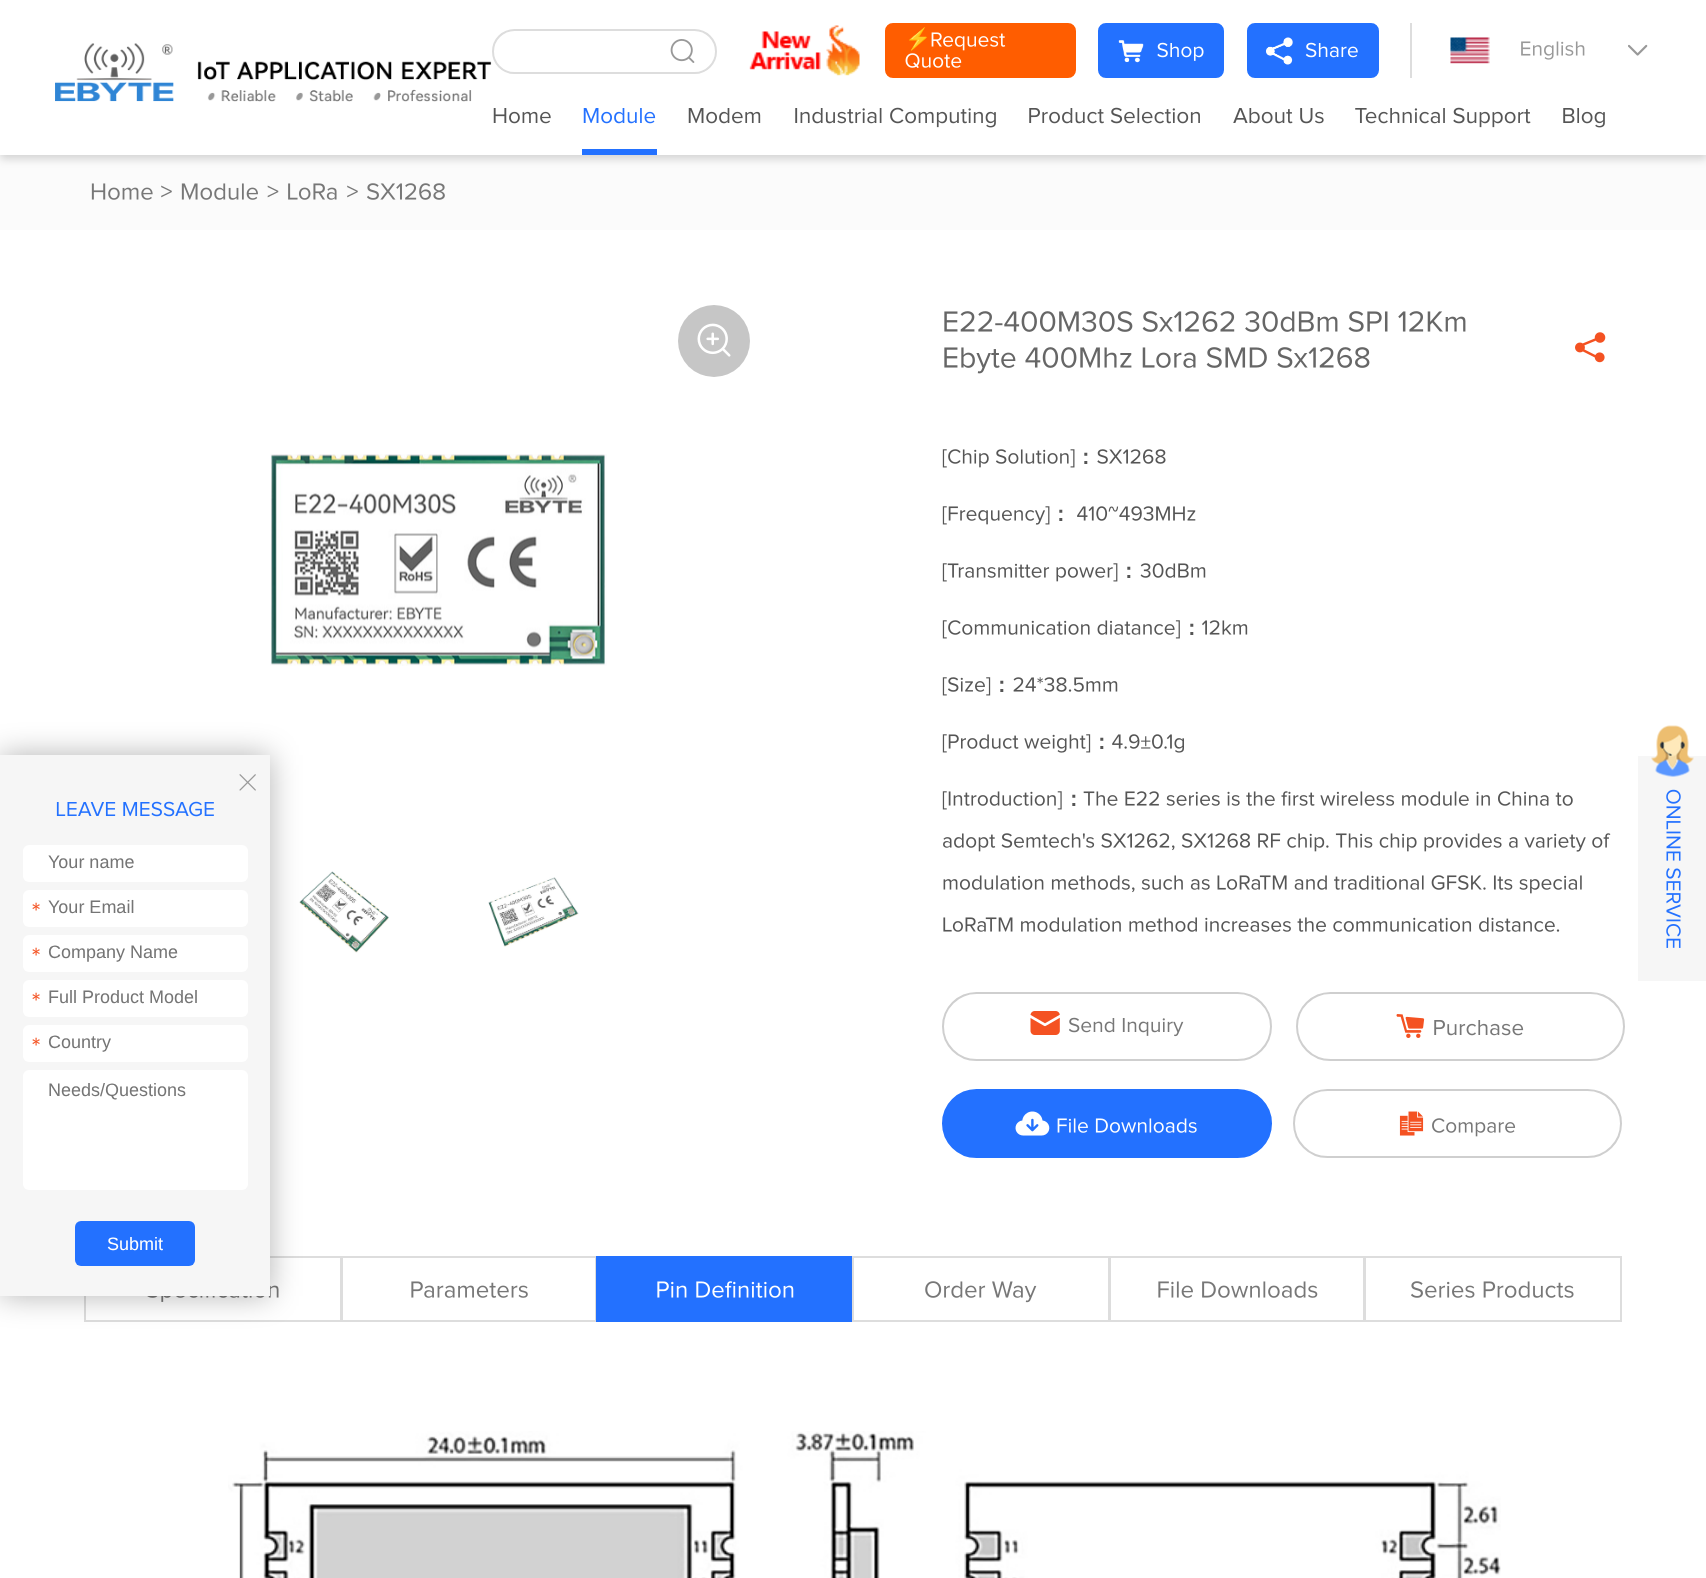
<!DOCTYPE html>
<meta charset="utf-8">
<style>body { margin: 0 } canvas { display: block }</style>
<canvas id="canvas" width="1706" height="1578"></canvas>
<img id="img1" src="img_01.png" hidden>
<img id="img2" src="img_02.png" hidden>
<img id="img3" src="img_03.png" hidden>
<img id="img4" src="img_04.png" hidden>
<img id="img5" src="img_05.png" hidden>
<img id="img6" src="img_06.png" hidden>
<img id="img7" src="img_07.png" hidden>
<img id="img8" src="img_08.png" hidden>
<img id="img9" src="img_09.png" hidden>
<img id="img10" src="img_10.png" hidden>
<img id="img11" src="img_11.png" hidden>
<img id="img12" src="img_12.png" hidden>
<img id="img13" src="img_13.png" hidden>
<img id="img14" src="img_14.png" hidden>
<img id="img15" src="img_15.png" hidden>
<img id="img16" src="img_16.png" hidden>
<img id="img17" src="img_17.png" hidden>
<img id="img18" src="img_18.png" hidden>
<img id="img19" src="img_19.png" hidden>
<img id="img20" src="img_20.png" hidden>
<img id="img21" src="img_21.png" hidden>
<img id="img22" src="img_22.png" hidden>
<img id="img23" src="img_23.png" hidden>
<img id="img24" src="img_24.png" hidden>
<img id="img25" src="img_25.png" hidden>
<img id="img26" src="img_26.png" hidden>
<img id="img27" src="img_27.png" hidden>
<img id="img28" src="img_28.png" hidden>
<img id="img29" src="img_29.png" hidden>
<img id="img30" src="img_30.png" hidden>
<img id="img31" src="img_31.png" hidden>
<img id="img32" src="img_32.png" hidden>
<img id="img33" src="img_33.png" hidden>
<img id="img34" src="img_34.png" hidden>
<img id="img35" src="img_35.png" hidden>
<img id="img36" src="img_36.png" hidden>
<img id="img37" src="img_37.png" hidden>
<img id="img38" src="img_38.png" hidden>
<img id="img39" src="img_39.png" hidden>
<img id="img40" src="img_40.png" hidden>
<img id="img41" src="img_41.png" hidden>
<img id="img42" src="img_42.png" hidden>
<img id="img43" src="img_43.png" hidden>
<img id="img44" src="img_44.png" hidden>
<img id="img45" src="img_45.png" hidden>
<img id="img46" src="img_46.png" hidden>
<img id="img47" src="img_47.png" hidden>
<img id="img48" src="img_48.png" hidden>
<img id="img49" src="img_49.png" hidden>
<img id="img50" src="img_50.png" hidden>
<img id="img51" src="img_51.png" hidden>
<img id="img52" src="img_52.png" hidden>
<img id="img53" src="img_53.png" hidden>
<img id="img54" src="img_54.png" hidden>
<img id="img55" src="img_55.png" hidden>
<img id="img56" src="img_56.png" hidden>
<img id="img57" src="img_57.png" hidden>
<img id="img58" src="img_58.png" hidden>
<img id="img59" src="img_59.png" hidden>
<img id="img60" src="img_60.png" hidden>
<img id="img61" src="img_61.png" hidden>
<img id="img62" src="img_62.png" hidden>
<img id="img63" src="img_63.png" hidden>
<img id="img64" src="img_64.png" hidden>
<img id="img65" src="img_65.png" hidden>
<img id="img66" src="img_66.png" hidden>
<img id="img67" src="img_67.png" hidden>
<img id="img68" src="img_68.png" hidden>
<img id="img69" src="img_69.png" hidden>
<img id="img70" src="img_70.png" hidden>
<script>
window.onload = function () {
	const canvas = document.getElementById("canvas");
	const ctx = canvas.getContext("2d");
	ctx.miterLimit = 4;
	ctx.fontKerning = "normal";
	function txt(s, x, y) {
		ctx.fillText(s, x, y);
	}
	function fill(x, y, w, h) {
		ctx.fillRect(x, y, w, h);
	}
	function round(x, y, w, h, r) {
		ctx.beginPath();
		ctx.roundRect(x, y, w, h, r);
		ctx.fill();
	}
	function img(id, x, y, w, h) {
		ctx.drawImage(document.getElementById(id), x, y, w, h);
	}

	ctx.fillStyle = "#FFFFFF";
	fill(0, 0, 1706, 1578);
	ctx.fillStyle = "#FBFBFB";
	fill(0, 155, 1706, 75);
	ctx.fillStyle = "rgba(0, 0, 0, 0.16)";
	ctx.filter = "blur(4.5px)";
	ctx.beginPath();
	ctx.rect(0, 5, 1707, 154);
	ctx.fill();
	ctx.filter = "none";
	ctx.fillStyle = "#FFFFFF";
	fill(0, 0, 1706, 155);
	ctx.beginPath();
	ctx.roundRect(493, 30, 223, 43, 21.5);
	ctx.strokeStyle = "#DDDDDD";
	ctx.lineWidth = 2;
	ctx.stroke();
	img("img1", 670, 39, 25, 24);
	ctx.fillStyle = "#DDDDDD";
	fill(1410, 23, 2, 55);
	img("img2", 749, 25, 111, 51);
	ctx.fillStyle = "#FF5D00";
	ctx.beginPath();
	ctx.roundRect(886, 24, 189, 53, 7);
	ctx.fill();
	ctx.strokeStyle = "#FF5D00";
	ctx.stroke();
	img("img3", 931, 32, 75, 19);
	img("img4", 905, 53, 57, 16);
	ctx.fillStyle = "#2371FF";
	ctx.beginPath();
	ctx.roundRect(1099, 24, 124, 53, 7);
	ctx.fill();
	ctx.strokeStyle = "#2371FF";
	ctx.stroke();
	img("img5", 1118, 40, 26, 23);
	img("img6", 1157, 42, 47, 19);
	ctx.beginPath();
	ctx.roundRect(1248, 24, 130, 53, 7);
	ctx.fill();
	ctx.stroke();
	img("img7", 1266, 37, 27, 28);
	img("img8", 1305, 42, 53, 16);
	img("img9", 1450, 37, 40, 27);
	img("img10", 1521, 41, 64, 19);
	img("img11", 1628, 44, 20, 12);
	img("img12", 493, 108, 58, 16);
	img("img13", 583, 108, 73, 16);
	fill(582, 149, 75, 6);
	img("img14", 688, 108, 73, 16);
	img("img15", 795, 107, 201, 21);
	img("img16", 1029, 107, 171, 17);
	img("img17", 1233, 108, 91, 16);
	img("img18", 1355, 107, 176, 21);
	img("img19", 1563, 108, 42, 20);
	img("img20", 55, 43, 437, 59);
	img("img21", 91, 183, 62, 17);
	img("img22", 161, 185, 11, 13);
	img("img23", 181, 183, 77, 17);
	img("img24", 267, 185, 12, 13);
	img("img25", 288, 183, 49, 17);
	img("img22", 347, 185, 11, 13);
	img("img26", 367, 183, 78, 17);
	ctx.fillStyle = "#C6C6C6";
	ctx.beginPath();
	ctx.arc(714, 341, 36, 0, Math.PI * 2);
	ctx.fill();
	img("img27", 697, 323, 34, 34);
	img("img28", 270, 454, 337, 212);
	img("img29", 299, 871, 90, 82);
	img("img30", 488, 877, 91, 70);
	img("img31", 944, 311, 522, 21);
	img("img32", 944, 347, 426, 27);
	img("img33", 1575, 332, 31, 31);
	img("img34", 942, 449, 133, 19);
	img("img35", 1097, 449, 69, 15);
	img("img36", 942, 506, 108, 19);
	img("img37", 1077, 506, 119, 15);
	img("img38", 942, 563, 176, 19);
	img("img39", 1140, 563, 66, 15);
	img("img40", 942, 620, 238, 19);
	img("img41", 1202, 620, 46, 15);
	img("img42", 942, 677, 49, 19);
	img("img43", 1013, 677, 105, 15);
	img("img44", 942, 734, 149, 19);
	img("img45", 1112, 734, 72, 19);
	img("img46", 942, 791, 120, 19);
	img("img47", 1083, 791, 490, 15);
	img("img48", 943, 833, 668, 19);
	img("img49", 943, 875, 639, 19);
	img("img50", 943, 917, 617, 15);
	ctx.beginPath();
	ctx.roundRect(943, 993, 328, 67, 33.5);
	ctx.strokeStyle = "#CFCFCF";
	ctx.stroke();
	img("img51", 1030, 1011, 30, 24);
	img("img52", 1069, 1017, 115, 20);
	ctx.beginPath();
	ctx.roundRect(1297, 993, 327, 67, 33.5);
	ctx.stroke();
	img("img53", 1396, 1014, 29, 24);
	img("img54", 1434, 1020, 90, 16);
	ctx.fillStyle = "#2371FF";
	ctx.beginPath();
	ctx.roundRect(943, 1090, 328, 67, 33.5);
	ctx.fill();
	ctx.strokeStyle = "#2371FF";
	ctx.stroke();
	img("img55", 1015, 1111, 35, 25);
	img("img56", 1057, 1118, 140, 15);
	ctx.beginPath();
	ctx.roundRect(1294, 1090, 327, 67, 33.5);
	ctx.strokeStyle = "#CFCFCF";
	ctx.stroke();
	img("img57", 1399, 1111, 25, 25);
	img("img58", 1432, 1118, 84, 19);
	ctx.strokeStyle = "#DDDDDD";
	ctx.strokeRect(85, 1257, 256, 64);
	img("img59", 147, 1285, 132, 17);
	ctx.strokeRect(342, 1257, 254, 64);
	img("img60", 411, 1281, 117, 17);
	fill(596, 1256, 256, 66);
	img("img61", 657, 1281, 137, 17);
	ctx.strokeRect(853, 1257, 256, 64);
	img("img62", 925, 1281, 112, 22);
	ctx.strokeRect(1110, 1257, 254, 64);
	img("img63", 1158, 1281, 160, 17);
	ctx.strokeRect(1365, 1257, 256, 64);
	img("img64", 1411, 1281, 163, 17);
	img("img65", 228, 1431, 1273, 147);
	ctx.fillStyle = "rgba(0, 0, 0, 0.3)";
	ctx.filter = "blur(15px)";
	ctx.beginPath();
	ctx.rect(0, 755, 270, 541);
	ctx.fill();
	ctx.filter = "none";
	ctx.fillStyle = "#F6F6F6";
	fill(0, 755, 270, 541);
	img("img66", 239, 774, 17, 17);
	img("img67", 56, 801, 158, 16);
	ctx.fillStyle = "#FFFFFF";
	round(23, 845, 225, 37, 6);
	round(23, 890, 225, 37, 6);
	img("img68", 32, 902, 8, 9);
	round(23, 935, 225, 37, 6);
	img("img68", 32, 947, 8, 9);
	round(23, 980, 225, 37, 6);
	img("img68", 32, 992, 8, 9);
	round(23, 1025, 225, 37, 6);
	img("img68", 32, 1037, 8, 9);
	round(23, 1070, 225, 120, 6);
	ctx.fillStyle = "#2371FF";
	round(75, 1221, 120, 45, 6);
	ctx.fillStyle = "#F6F6F6";
	fill(1638, 756, 68, 225);
	img("img69", 1651, 725, 43, 52);
	img("img70", 1666, 789, 15, 159);
	ctx.font = "bold 21px Noto Color Emoji";
	ctx.fillStyle = "#FFFFFF";
	txt("⚡", 905, 46);
	ctx.font = "bold 21px WenQuanYi Zen Hei";
	ctx.fillStyle = "#555555";
	txt("：", 1075, 464);
	txt("：", 1050, 521);
	txt("：", 1118, 578);
	txt("：", 1181, 635);
	txt("：", 991, 692);
	txt("：", 1091, 749);
	txt("：", 1063, 806);
	ctx.font = "18px Liberation Sans";
	ctx.fillStyle = "#757575";
	txt("Your name", 48, 868);
	txt("Your Email", 48, 913);
	txt("Company Name", 48, 958);
	txt("Full Product Model", 48, 1003);
	txt("Country", 48, 1048);
	txt("Needs/Questions", 48, 1096);
	ctx.fillStyle = "#FFFFFF";
	txt("Submit", 107, 1250);
};
</script>
